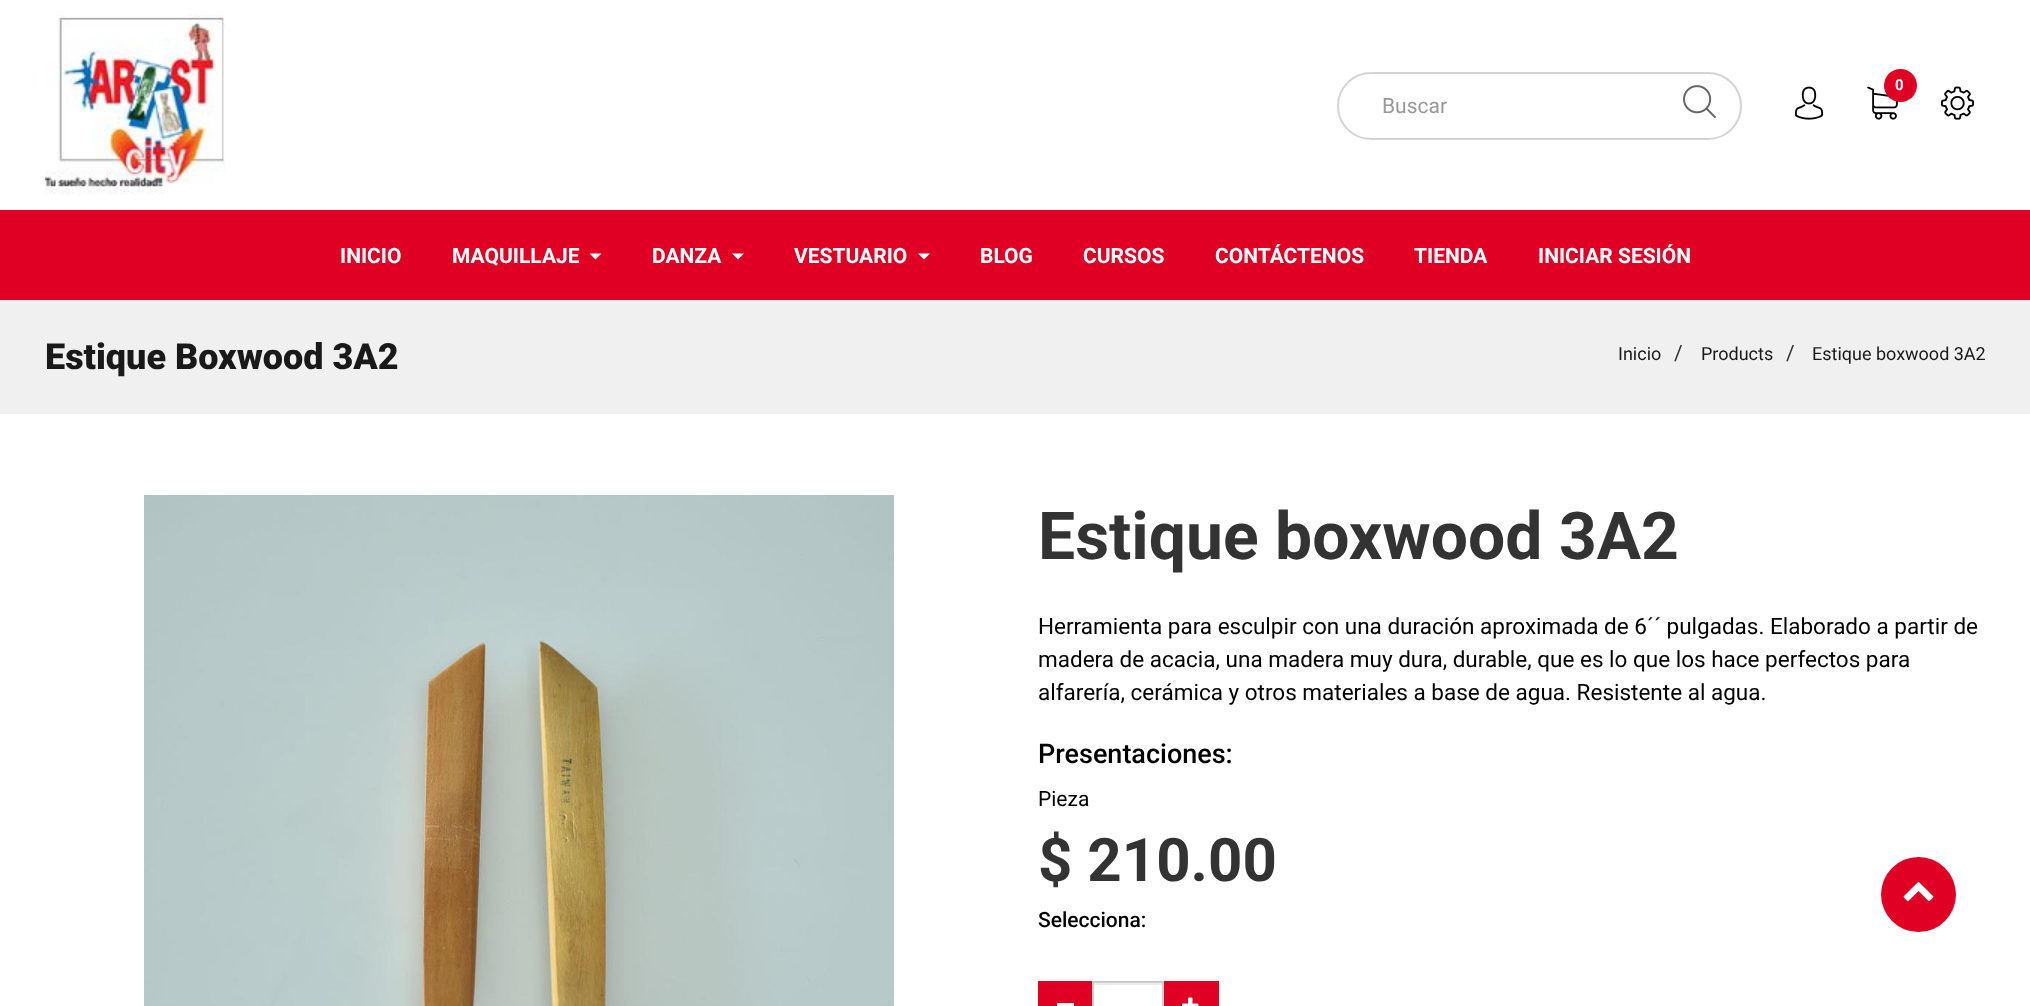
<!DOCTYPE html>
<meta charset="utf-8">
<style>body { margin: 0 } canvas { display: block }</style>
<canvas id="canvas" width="2030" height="1006"></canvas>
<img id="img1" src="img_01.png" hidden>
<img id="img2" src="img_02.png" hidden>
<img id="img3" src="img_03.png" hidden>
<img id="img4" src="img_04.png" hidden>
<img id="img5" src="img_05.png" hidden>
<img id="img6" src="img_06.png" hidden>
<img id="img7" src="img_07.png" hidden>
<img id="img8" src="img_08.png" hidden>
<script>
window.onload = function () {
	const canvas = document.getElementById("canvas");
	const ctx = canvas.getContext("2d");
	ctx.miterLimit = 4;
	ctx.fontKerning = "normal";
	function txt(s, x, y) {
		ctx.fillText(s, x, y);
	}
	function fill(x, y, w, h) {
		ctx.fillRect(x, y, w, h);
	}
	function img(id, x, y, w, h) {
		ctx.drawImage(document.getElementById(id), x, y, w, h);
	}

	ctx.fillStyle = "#FFFFFF";
	fill(0, 0, 2030, 1006);
	img("img1", 45, 15, 180, 180);
	ctx.beginPath();
	ctx.roundRect(1338, 73, 403, 66, 33);
	ctx.strokeStyle = "#D4D4D4";
	ctx.lineWidth = 2;
	ctx.stroke();
	img("img2", 1683, 85, 33, 33);
	img("img3", 1794, 86, 30, 34);
	img("img4", 1867, 86, 31, 34);
	ctx.fillStyle = "#DF0024";
	ctx.beginPath();
	ctx.arc(1900.5, 85.5, 16.5, 0, Math.PI * 2);
	ctx.fill();
	img("img5", 1941, 86, 33, 34);
	fill(0, 210, 2030, 90);
	ctx.fillStyle = "#FFFFFF";
	ctx.beginPath();
	ctx.moveTo(589.5, 253.5);
	ctx.lineTo(601.5, 253.5);
	ctx.lineTo(595.5, 259.5);
	ctx.closePath();
	ctx.fill();
	ctx.beginPath();
	ctx.moveTo(732, 253.5);
	ctx.lineTo(744, 253.5);
	ctx.lineTo(738, 259.5);
	ctx.closePath();
	ctx.fill();
	ctx.beginPath();
	ctx.moveTo(918, 253.5);
	ctx.lineTo(930, 253.5);
	ctx.lineTo(924, 259.5);
	ctx.closePath();
	ctx.fill();
	ctx.fillStyle = "#F0F0F0";
	fill(0, 300, 2030, 114);
	img("img6", 144, 495, 750, 511);
	ctx.fillStyle = "#DF0024";
	fill(1038, 981, 54, 25);
	ctx.fillStyle = "#FFFFFF";
	fill(1057, 1003, 17, 3);
	ctx.fillStyle = "#ECECEC";
	fill(1094, 983, 69, 2);
	ctx.strokeStyle = "#CCCCCC";
	ctx.strokeRect(1093, 982, 70, 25);
	ctx.fillStyle = "#DF0024";
	fill(1164, 981, 55, 25);
	img("img7", 1182, 997, 17, 9);
	ctx.beginPath();
	ctx.arc(1918.5, 894.5, 37.5, 0, Math.PI * 2);
	ctx.fill();
	img("img8", 1903, 882, 31, 20);
	ctx.font = "21px Roboto";
	ctx.fillStyle = "#999999";
	txt("Buscar", 1382, 113);
	ctx.font = "bold 15px Roboto";
	ctx.fillStyle = "#FFFFFF";
	txt("0", 1895, 90);
	ctx.font = "bold 21px Roboto";
	txt("INICIO", 340, 263);
	txt("MAQUILLAJE", 452, 263);
	txt("DANZA", 652, 263);
	txt("VESTUARIO", 794, 263);
	txt("BLOG", 980, 263);
	txt("CURSOS", 1083, 263);
	txt("CONTÁCTENOS", 1215, 263);
	txt("TIENDA", 1414, 263);
	txt("INICIAR SESIÓN", 1538, 263);
	ctx.font = "900 36px Roboto";
	ctx.fillStyle = "#191919";
	txt("Estique Boxwood 3A2", 45, 369);
	ctx.font = "18px Roboto";
	txt("Inicio", 1618, 360);
	ctx.font = "21px Roboto";
	ctx.fillStyle = "#333333";
	txt("/", 1674, 360);
	ctx.font = "18px Roboto";
	ctx.fillStyle = "#191919";
	txt("Products", 1701, 360);
	ctx.font = "21px Roboto";
	ctx.fillStyle = "#333333";
	txt("/", 1786, 360);
	ctx.font = "18px Roboto";
	ctx.fillStyle = "#191919";
	txt("Estique boxwood 3A2", 1812, 360);
	ctx.font = "bold 66px Roboto";
	ctx.fillStyle = "#333333";
	txt("Estique boxwood 3A2", 1038, 559);
	ctx.font = "22.5px Roboto";
	ctx.fillStyle = "#000000";
	txt("Herramienta para esculpir con una duración aproximada de 6´´ pulgadas. Elaborado a partir de", 1038, 634);
	txt("madera de acacia, una madera muy dura, durable, que es lo que los hace perfectos para", 1038, 667);
	txt("alfarería, cerámica y otros materiales a base de agua. Resistente al agua.", 1038, 700);
	ctx.font = "500 27px Roboto";
	txt("Presentaciones:", 1038, 763);
	ctx.font = "21px Roboto";
	txt("Pieza", 1038, 806);
	ctx.font = "bold 60px Roboto";
	ctx.fillStyle = "#333333";
	txt("$ 210.00", 1038, 881);
	ctx.font = "500 21px Roboto";
	ctx.fillStyle = "#000000";
	txt("Selecciona:", 1038, 927);
};
</script>
